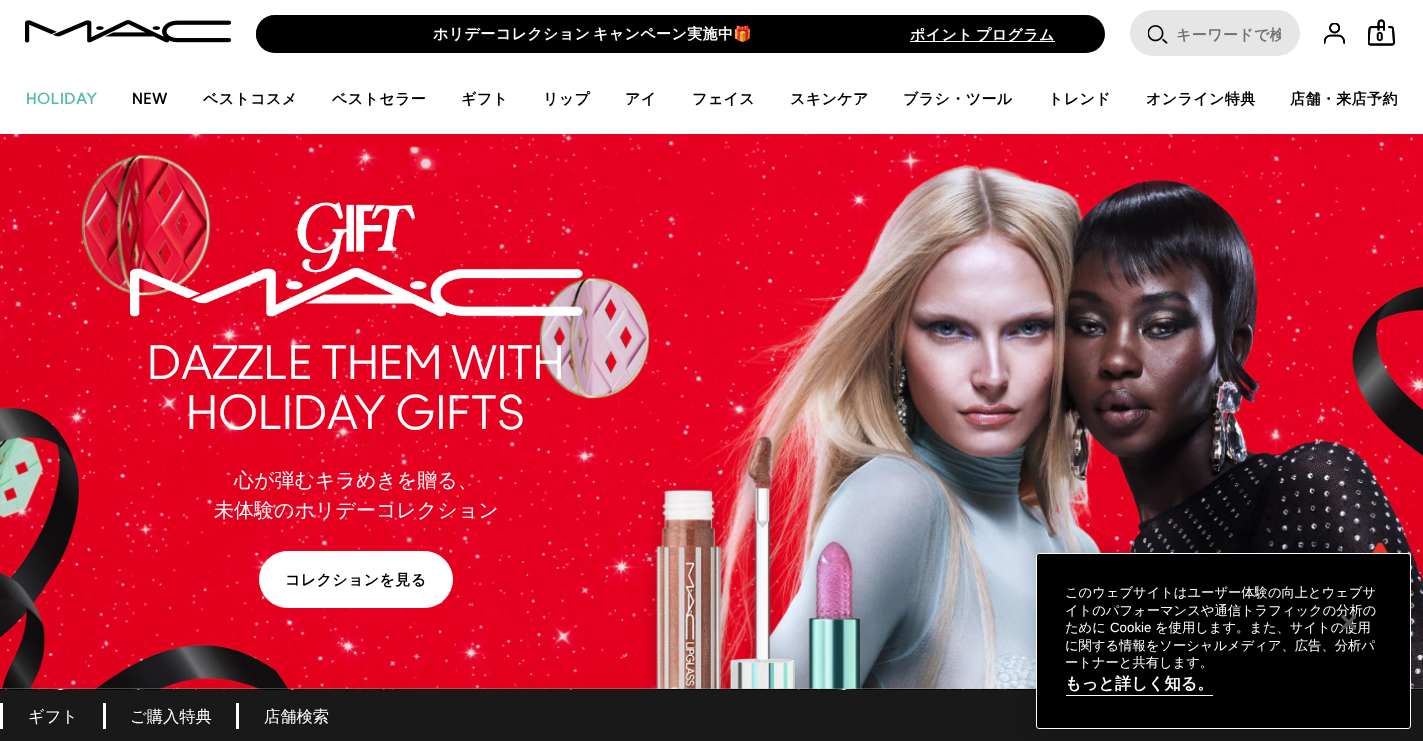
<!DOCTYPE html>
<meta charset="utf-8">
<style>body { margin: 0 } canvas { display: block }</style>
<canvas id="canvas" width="1423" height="741"></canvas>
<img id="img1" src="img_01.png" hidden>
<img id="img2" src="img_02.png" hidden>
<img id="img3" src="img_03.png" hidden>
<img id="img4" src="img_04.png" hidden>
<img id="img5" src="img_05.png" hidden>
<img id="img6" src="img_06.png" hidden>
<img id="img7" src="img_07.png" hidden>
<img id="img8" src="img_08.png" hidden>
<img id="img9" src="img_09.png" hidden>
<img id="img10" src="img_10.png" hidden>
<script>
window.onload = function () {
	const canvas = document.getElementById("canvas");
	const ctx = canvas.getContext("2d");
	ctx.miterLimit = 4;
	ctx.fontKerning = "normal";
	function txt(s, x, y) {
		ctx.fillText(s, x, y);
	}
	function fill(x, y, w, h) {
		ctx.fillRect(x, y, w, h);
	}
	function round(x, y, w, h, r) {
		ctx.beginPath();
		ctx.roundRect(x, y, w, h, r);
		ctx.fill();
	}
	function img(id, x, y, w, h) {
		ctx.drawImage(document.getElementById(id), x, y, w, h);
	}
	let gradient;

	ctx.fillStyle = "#FFFFFF";
	fill(0, 0, 1423, 741);
	img("img1", 25, 20, 206, 23);
	ctx.fillStyle = "#000000";
	round(256, 15, 849, 38, 19);
	gradient = ctx.createLinearGradient(256, 34, 281, 34);
	gradient.addColorStop(0, "rgba(0, 0, 0, 0.9)");
	gradient.addColorStop(1, "rgba(0, 0, 0, 0.1)");
	ctx.fillStyle = gradient;
	ctx.beginPath();
	ctx.roundRect(256, 15, 25, 38, [19, 0, 0, 19]);
	ctx.fill();
	ctx.fillStyle = "#FFFFFF";
	fill(910, 41, 145, 1);
	ctx.fillStyle = "#E6E6E6";
	round(1130, 10, 170, 46, 23);
	img("img2", 1148, 25, 20, 19);
	img("img3", 1324, 23, 21, 21);
	img("img4", 1324, 23, 21, 21);
	img("img5", 1368, 19, 27, 27);
	img("img6", 1368, 19, 27, 27);
	img("img7", 0, 134, 1423, 555);
	img("img8", 130, 202, 453, 115);
	ctx.fillStyle = "#FFFFFF";
	ctx.beginPath();
	ctx.roundRect(259.5, 551.5, 193, 56, 28);
	ctx.fill();
	ctx.strokeStyle = "#FFFFFF";
	ctx.stroke();
	img("img9", 0, 688, 1423, 2);
	ctx.fillStyle = "#191919";
	fill(0, 690, 1423, 51);
	ctx.fillStyle = "rgba(0, 0, 0, 0.2)";
	ctx.filter = "blur(11px)";
	ctx.beginPath();
	ctx.roundRect(1036, 553, 375, 176, 3);
	ctx.fill();
	ctx.filter = "none";
	ctx.fillStyle = "#000000";
	ctx.beginPath();
	ctx.roundRect(1036.5, 553.5, 374, 175, 2.5);
	ctx.fill();
	ctx.stroke();
	ctx.fillStyle = "#FFFFFF";
	fill(1066, 695, 147, 1);
	fill(0, 703, 3, 26);
	fill(103, 703, 3, 26);
	fill(236, 703, 3, 26);
	ctx.letterSpacing = "0.4px";
	ctx.wordSpacing = "-2px";
	ctx.font = "bold 15px WenQuanYi Zen Hei";
	txt("ホリデーコレクション キャンペーン実施中", 433, 39);
	ctx.wordSpacing = "0px";
	ctx.font = "bold 15px Noto Color Emoji";
	txt("🎁", 733, 39);
	ctx.wordSpacing = "-2px";
	ctx.font = "bold 15px WenQuanYi Zen Hei";
	txt("ポイント プログラム", 910, 40);
	ctx.save();
	ctx.beginPath();
	ctx.rect(1176, 25, 105, 31);
	ctx.clip();
	ctx.wordSpacing = "0px";
	ctx.fillStyle = "#727272";
	txt("キーワードで検", 1176, 40);
	ctx.restore();
	ctx.letterSpacing = "0px";
	ctx.wordSpacing = "0px";
	ctx.font = "900 12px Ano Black";
	ctx.fillStyle = "#000000";
	txt("0", 1376, 41);
	ctx.letterSpacing = "0.4px";
	ctx.font = "bold 15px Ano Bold";
	ctx.fillStyle = "#56BCA9";
	txt("HOLIDAY", 26, 104);
	ctx.fillStyle = "#000000";
	txt("NEW", 132, 104);
	ctx.font = "bold 15px WenQuanYi Zen Hei";
	txt("ベストコスメ", 203, 104);
	txt("ベストセラー", 332, 104);
	txt("ギフト", 461, 104);
	txt("リップ", 543, 104);
	txt("アイ", 625, 104);
	txt("フェイス", 692, 104);
	txt("スキンケア", 790, 104);
	txt("ブラシ・ツール", 903, 104);
	txt("トレンド", 1048, 104);
	txt("オンライン特典", 1146, 104);
	txt("店舗・来店予約", 1290, 104);
	ctx.letterSpacing = "0px";
	ctx.font = "45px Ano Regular";
	ctx.fillStyle = "#FFFFFF";
	txt("DAZZLE THEM WITH", 147, 379);
	txt("HOLIDAY GIFTS", 186, 429);
	ctx.font = "500 20px WenQuanYi Zen Hei";
	txt("心が弾むキラめきを贈る、", 234, 487);
	txt("未体験のホリデーコレクション", 214, 517);
	ctx.letterSpacing = "0.4px";
	ctx.font = "bold 15px WenQuanYi Zen Hei";
	ctx.fillStyle = "#000000";
	txt("コレクションを見る", 285, 585);
	ctx.letterSpacing = "0px";
	ctx.font = "500 13.3px WenQuanYi Zen Hei";
	ctx.fillStyle = "#FFFFFF";
	txt("このウェブサイトはユーザー体験の向上とウェブサ", 1065, 597);
	txt("イトのパフォーマンスや通信トラフィックの分析の", 1065, 615);
	txt("ために", 1065, 632);
	ctx.font = "13.3px Liberation Sans";
	txt("Cookie", 1110, 632);
	ctx.font = "500 13.3px WenQuanYi Zen Hei";
	txt("を使用します。また、サイトの使用", 1155, 632);
	txt("に関する情報をソーシャルメディア、広告、分析パ", 1065, 650);
	txt("ートナーと共有します。", 1065, 667);
	img("img10", 1341, 615, 15, 15);
	ctx.font = "bold 16.25px WenQuanYi Zen Hei";
	txt("もっと詳しく知る。", 1065, 689);
	ctx.font = "500 16.25px WenQuanYi Zen Hei";
	txt("ギフト", 28, 722);
	txt("ご購入特典", 130, 722);
	txt("店舗検索", 264, 722);
};
</script>
